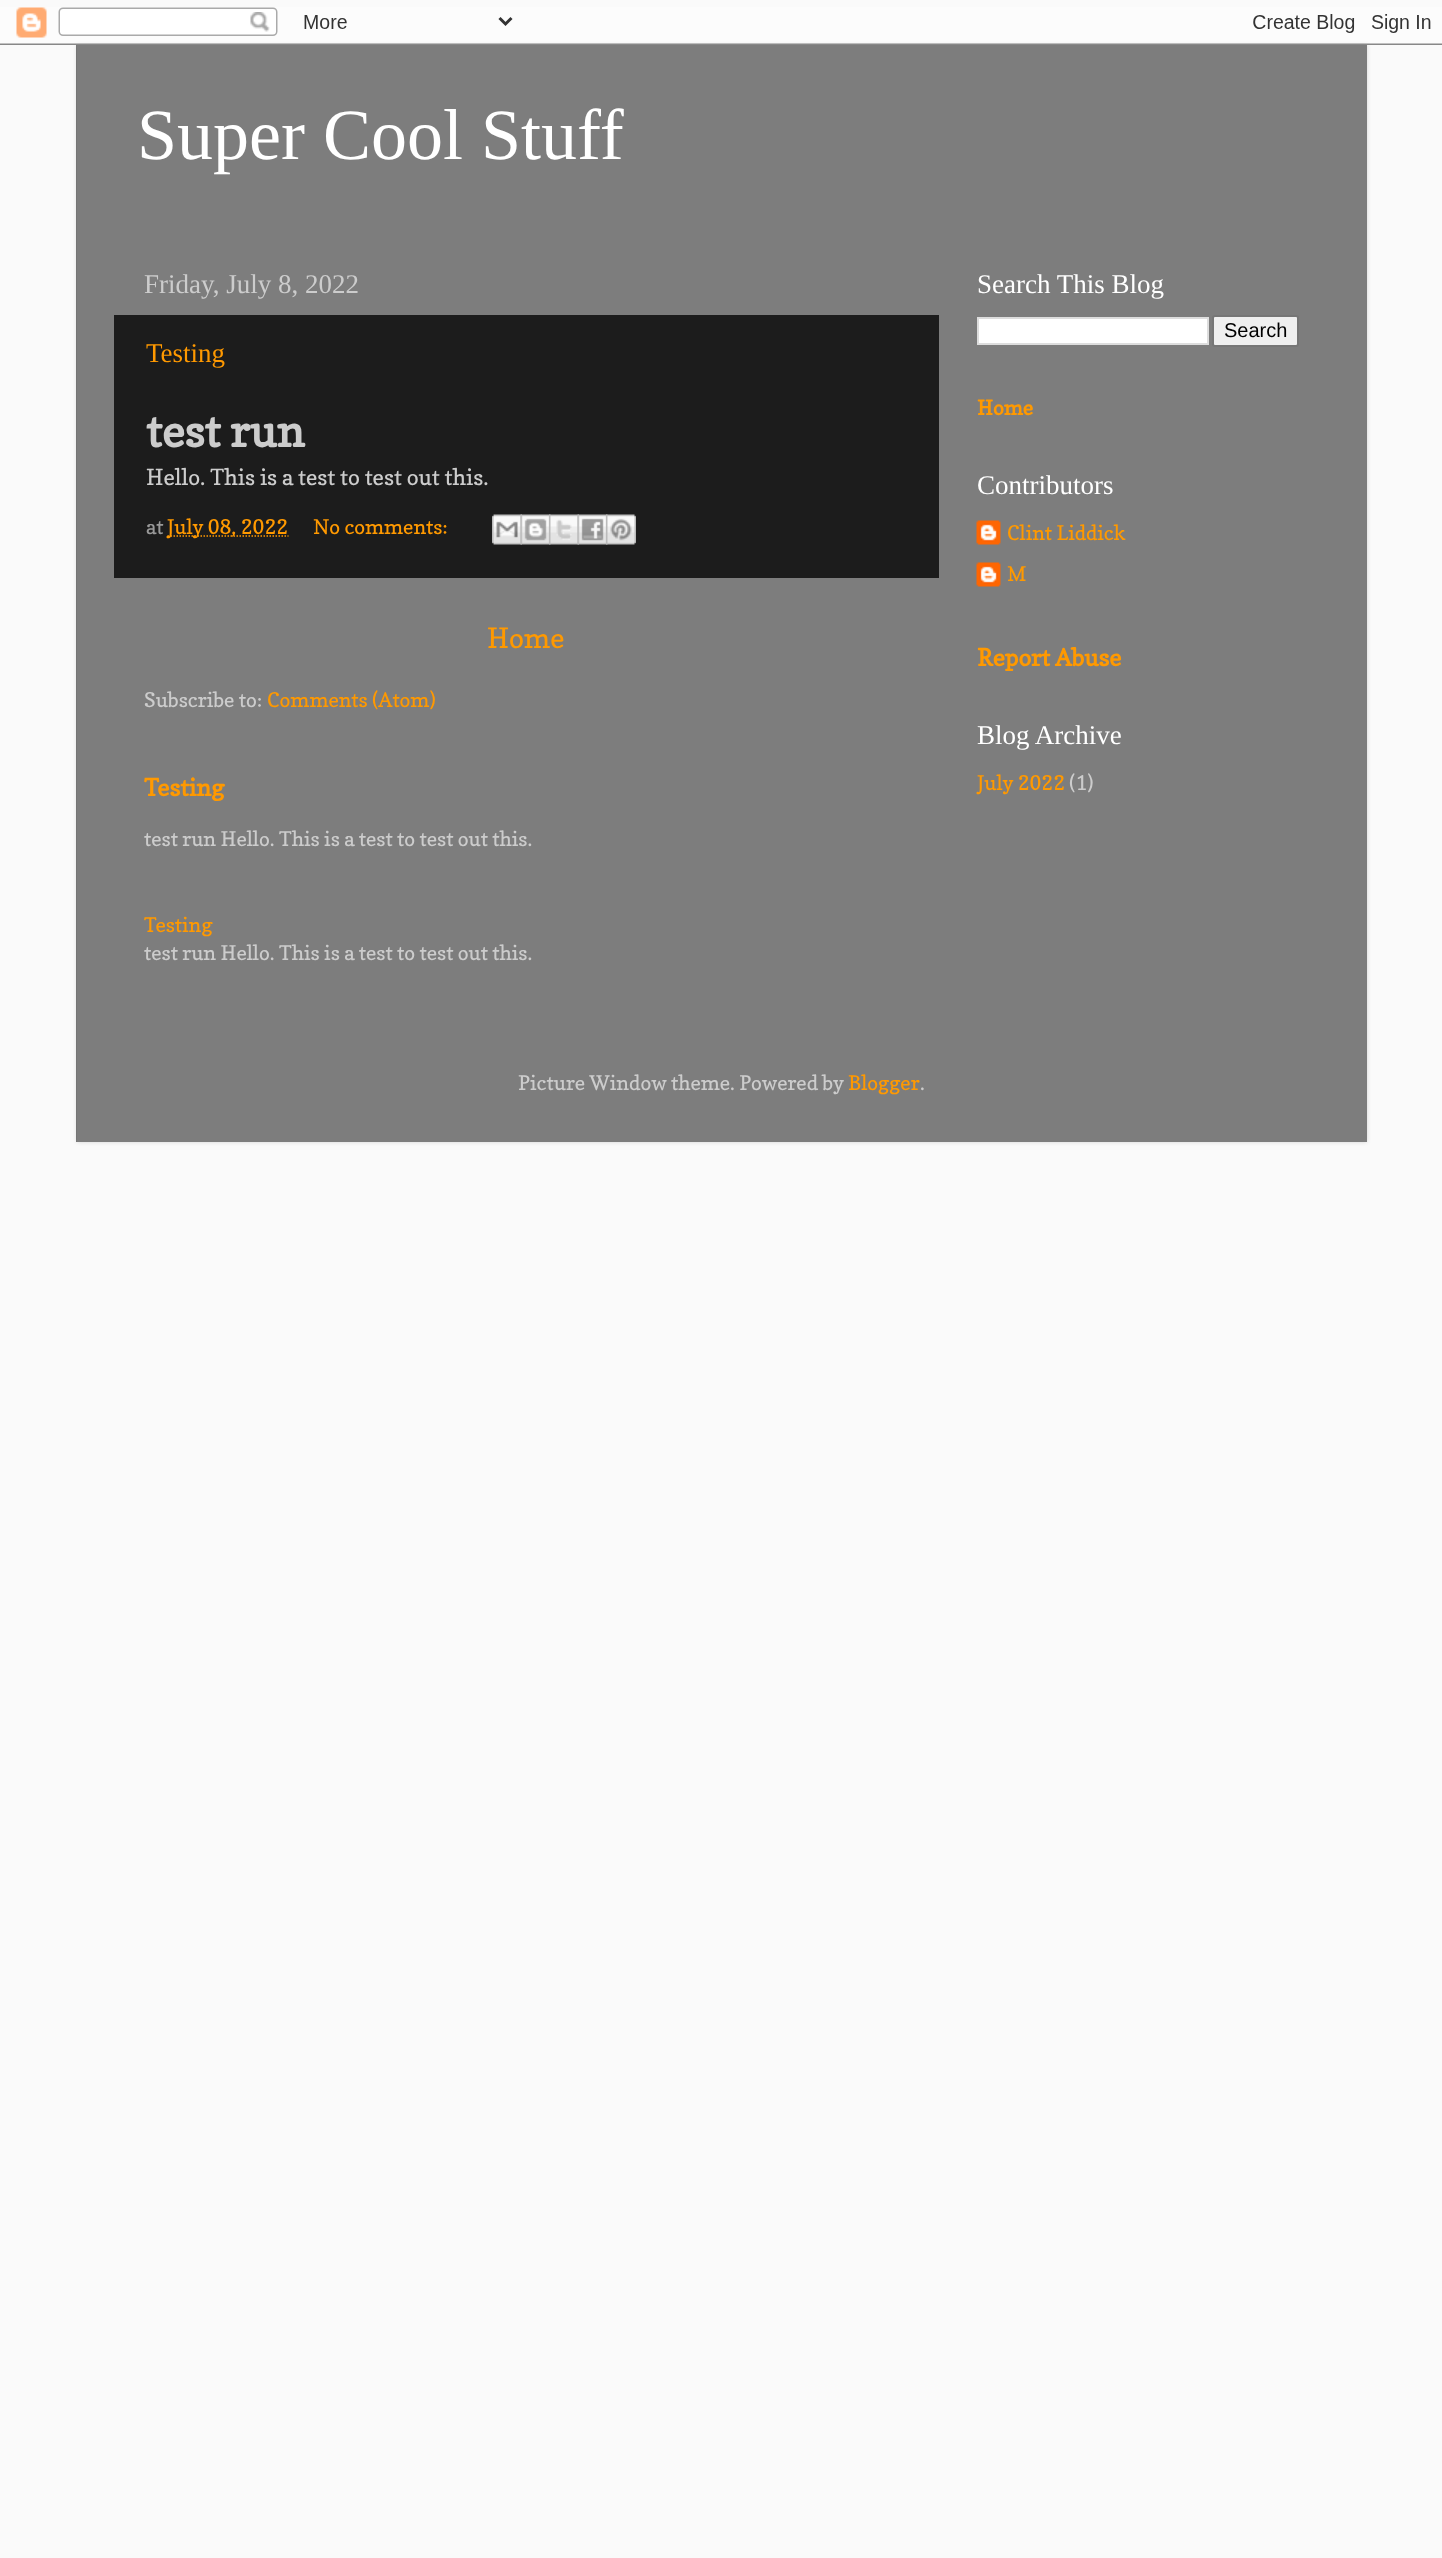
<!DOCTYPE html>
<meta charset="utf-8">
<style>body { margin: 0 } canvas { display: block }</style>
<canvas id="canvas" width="1442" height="2558"></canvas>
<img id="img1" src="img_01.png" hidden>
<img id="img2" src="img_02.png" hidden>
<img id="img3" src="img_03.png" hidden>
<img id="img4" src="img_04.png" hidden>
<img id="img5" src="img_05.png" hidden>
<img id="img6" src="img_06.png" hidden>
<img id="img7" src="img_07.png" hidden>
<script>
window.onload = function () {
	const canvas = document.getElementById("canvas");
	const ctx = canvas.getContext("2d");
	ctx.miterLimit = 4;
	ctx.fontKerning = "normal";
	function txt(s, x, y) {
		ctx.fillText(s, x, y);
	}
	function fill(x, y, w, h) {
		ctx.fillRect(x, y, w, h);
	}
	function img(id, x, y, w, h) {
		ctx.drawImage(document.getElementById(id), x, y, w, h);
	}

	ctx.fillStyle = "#FAFAFA";
	fill(0, 0, 1442, 2558);
	ctx.save();
	ctx.beginPath();
	ctx.moveTo(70, 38);
	ctx.lineTo(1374, 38);
	ctx.lineTo(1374, 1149);
	ctx.lineTo(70, 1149);
	ctx.closePath();
	ctx.moveTo(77, 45);
	ctx.lineTo(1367, 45);
	ctx.lineTo(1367, 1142);
	ctx.lineTo(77, 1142);
	ctx.closePath();
	ctx.clip("evenodd");
	ctx.fillStyle = "rgba(0, 0, 0, 0.15)";
	ctx.filter = "blur(2px)";
	ctx.beginPath();
	ctx.rect(77, 45, 1290, 1097);
	ctx.fill();
	ctx.filter = "none";
	ctx.restore();
	img("img1", 0, 7, 1442, 38);
	ctx.fillStyle = "rgba(0, 0, 0, 0.5)";
	fill(76, 45, 1291, 1097);
	ctx.fillStyle = "#1C1C1C";
	fill(114, 315, 825, 263);
	ctx.beginPath();
	ctx.moveTo(167.5, 536);
	ctx.lineTo(288.5, 536);
	ctx.strokeStyle = "#FF9900";
	ctx.lineWidth = 1.5;
	ctx.setLineDash([1.5, 1.5]);
	ctx.stroke();
	img("img2", 492, 514, 30, 31);
	img("img3", 520, 514, 31, 31);
	img("img4", 549, 514, 30, 31);
	img("img5", 577, 514, 31, 31);
	img("img6", 606, 514, 30, 31);
	ctx.fillStyle = "#FFFFFF";
	ctx.beginPath();
	ctx.rect(978, 318, 230, 26);
	ctx.fill();
	ctx.strokeStyle = "#DDDDDD";
	ctx.lineWidth = 2;
	ctx.setLineDash([]);
	ctx.stroke();
	ctx.fillStyle = "#EFEFEF";
	ctx.beginPath();
	ctx.roundRect(1213, 316, 85, 30, 2);
	ctx.fill();
	ctx.strokeStyle = "#767676";
	ctx.stroke();
	img("img7", 976, 520, 25, 25);
	img("img7", 976, 562, 25, 25);
	ctx.font = "72px Liberation Serif";
	ctx.fillStyle = "#FFFFFF";
	txt("Super Cool Stuff", 137, 159);
	ctx.font = "27px Liberation Serif";
	ctx.fillStyle = "#CCCCCC";
	txt("Friday, July 8, 2022", 144, 293);
	ctx.fillStyle = "#FF9900";
	txt("Testing", 146, 362);
	ctx.font = "bold 44.5px Copse";
	ctx.fillStyle = "#CCCCCC";
	txt("test run", 146, 447);
	ctx.font = "22.25px Copse";
	txt("Hello. This is a test to test out this.", 146, 485);
	ctx.font = "20.25px Copse";
	ctx.fillStyle = "#999999";
	txt("at", 146, 534);
	ctx.fillStyle = "#FF9900";
	txt("July 08, 2022", 167, 534);
	txt("No comments:", 313, 534);
	ctx.font = "28px Copse";
	txt("Home", 487, 648);
	ctx.font = "20.25px Copse";
	ctx.fillStyle = "#CCCCCC";
	txt("Subscribe to:", 144, 707);
	ctx.fillStyle = "#FF9900";
	txt("Comments (Atom)", 267, 707);
	ctx.font = "bold 23.75px Copse";
	txt("Testing", 144, 796);
	ctx.font = "20.25px Copse";
	ctx.fillStyle = "#CCCCCC";
	txt("test run Hello. This is a test to test out this.", 144, 846);
	ctx.fillStyle = "#FF9900";
	txt("Testing", 144, 932);
	ctx.fillStyle = "#CCCCCC";
	txt("test run Hello. This is a test to test out this.", 144, 960);
	ctx.font = "27px Liberation Serif";
	ctx.fillStyle = "#FFFFFF";
	txt("Search This Blog", 977, 293);
	ctx.font = "20px Liberation Sans";
	ctx.fillStyle = "#000000";
	txt("Search", 1224, 337);
	ctx.font = "bold 20.25px Copse";
	ctx.fillStyle = "#FF9900";
	txt("Home", 977, 415);
	ctx.font = "27px Liberation Serif";
	ctx.fillStyle = "#FFFFFF";
	txt("Contributors", 977, 494);
	ctx.font = "20.25px Copse";
	ctx.fillStyle = "#FF9900";
	txt("Clint Liddick", 1007, 540);
	txt("M", 1007, 581);
	ctx.font = "bold 23.75px Copse";
	txt("Report Abuse", 977, 666);
	ctx.font = "27px Liberation Serif";
	ctx.fillStyle = "#FFFFFF";
	txt("Blog Archive", 977, 744);
	ctx.font = "20.25px Copse";
	ctx.fillStyle = "#FF9900";
	txt("July 2022", 977, 790);
	ctx.fillStyle = "#CCCCCC";
	txt("(1)", 1069, 790);
	txt("Picture Window theme. Powered by", 518, 1090);
	ctx.fillStyle = "#FF9900";
	txt("Blogger", 848, 1090);
	ctx.fillStyle = "#CCCCCC";
	txt(".", 920, 1090);
};
</script>
